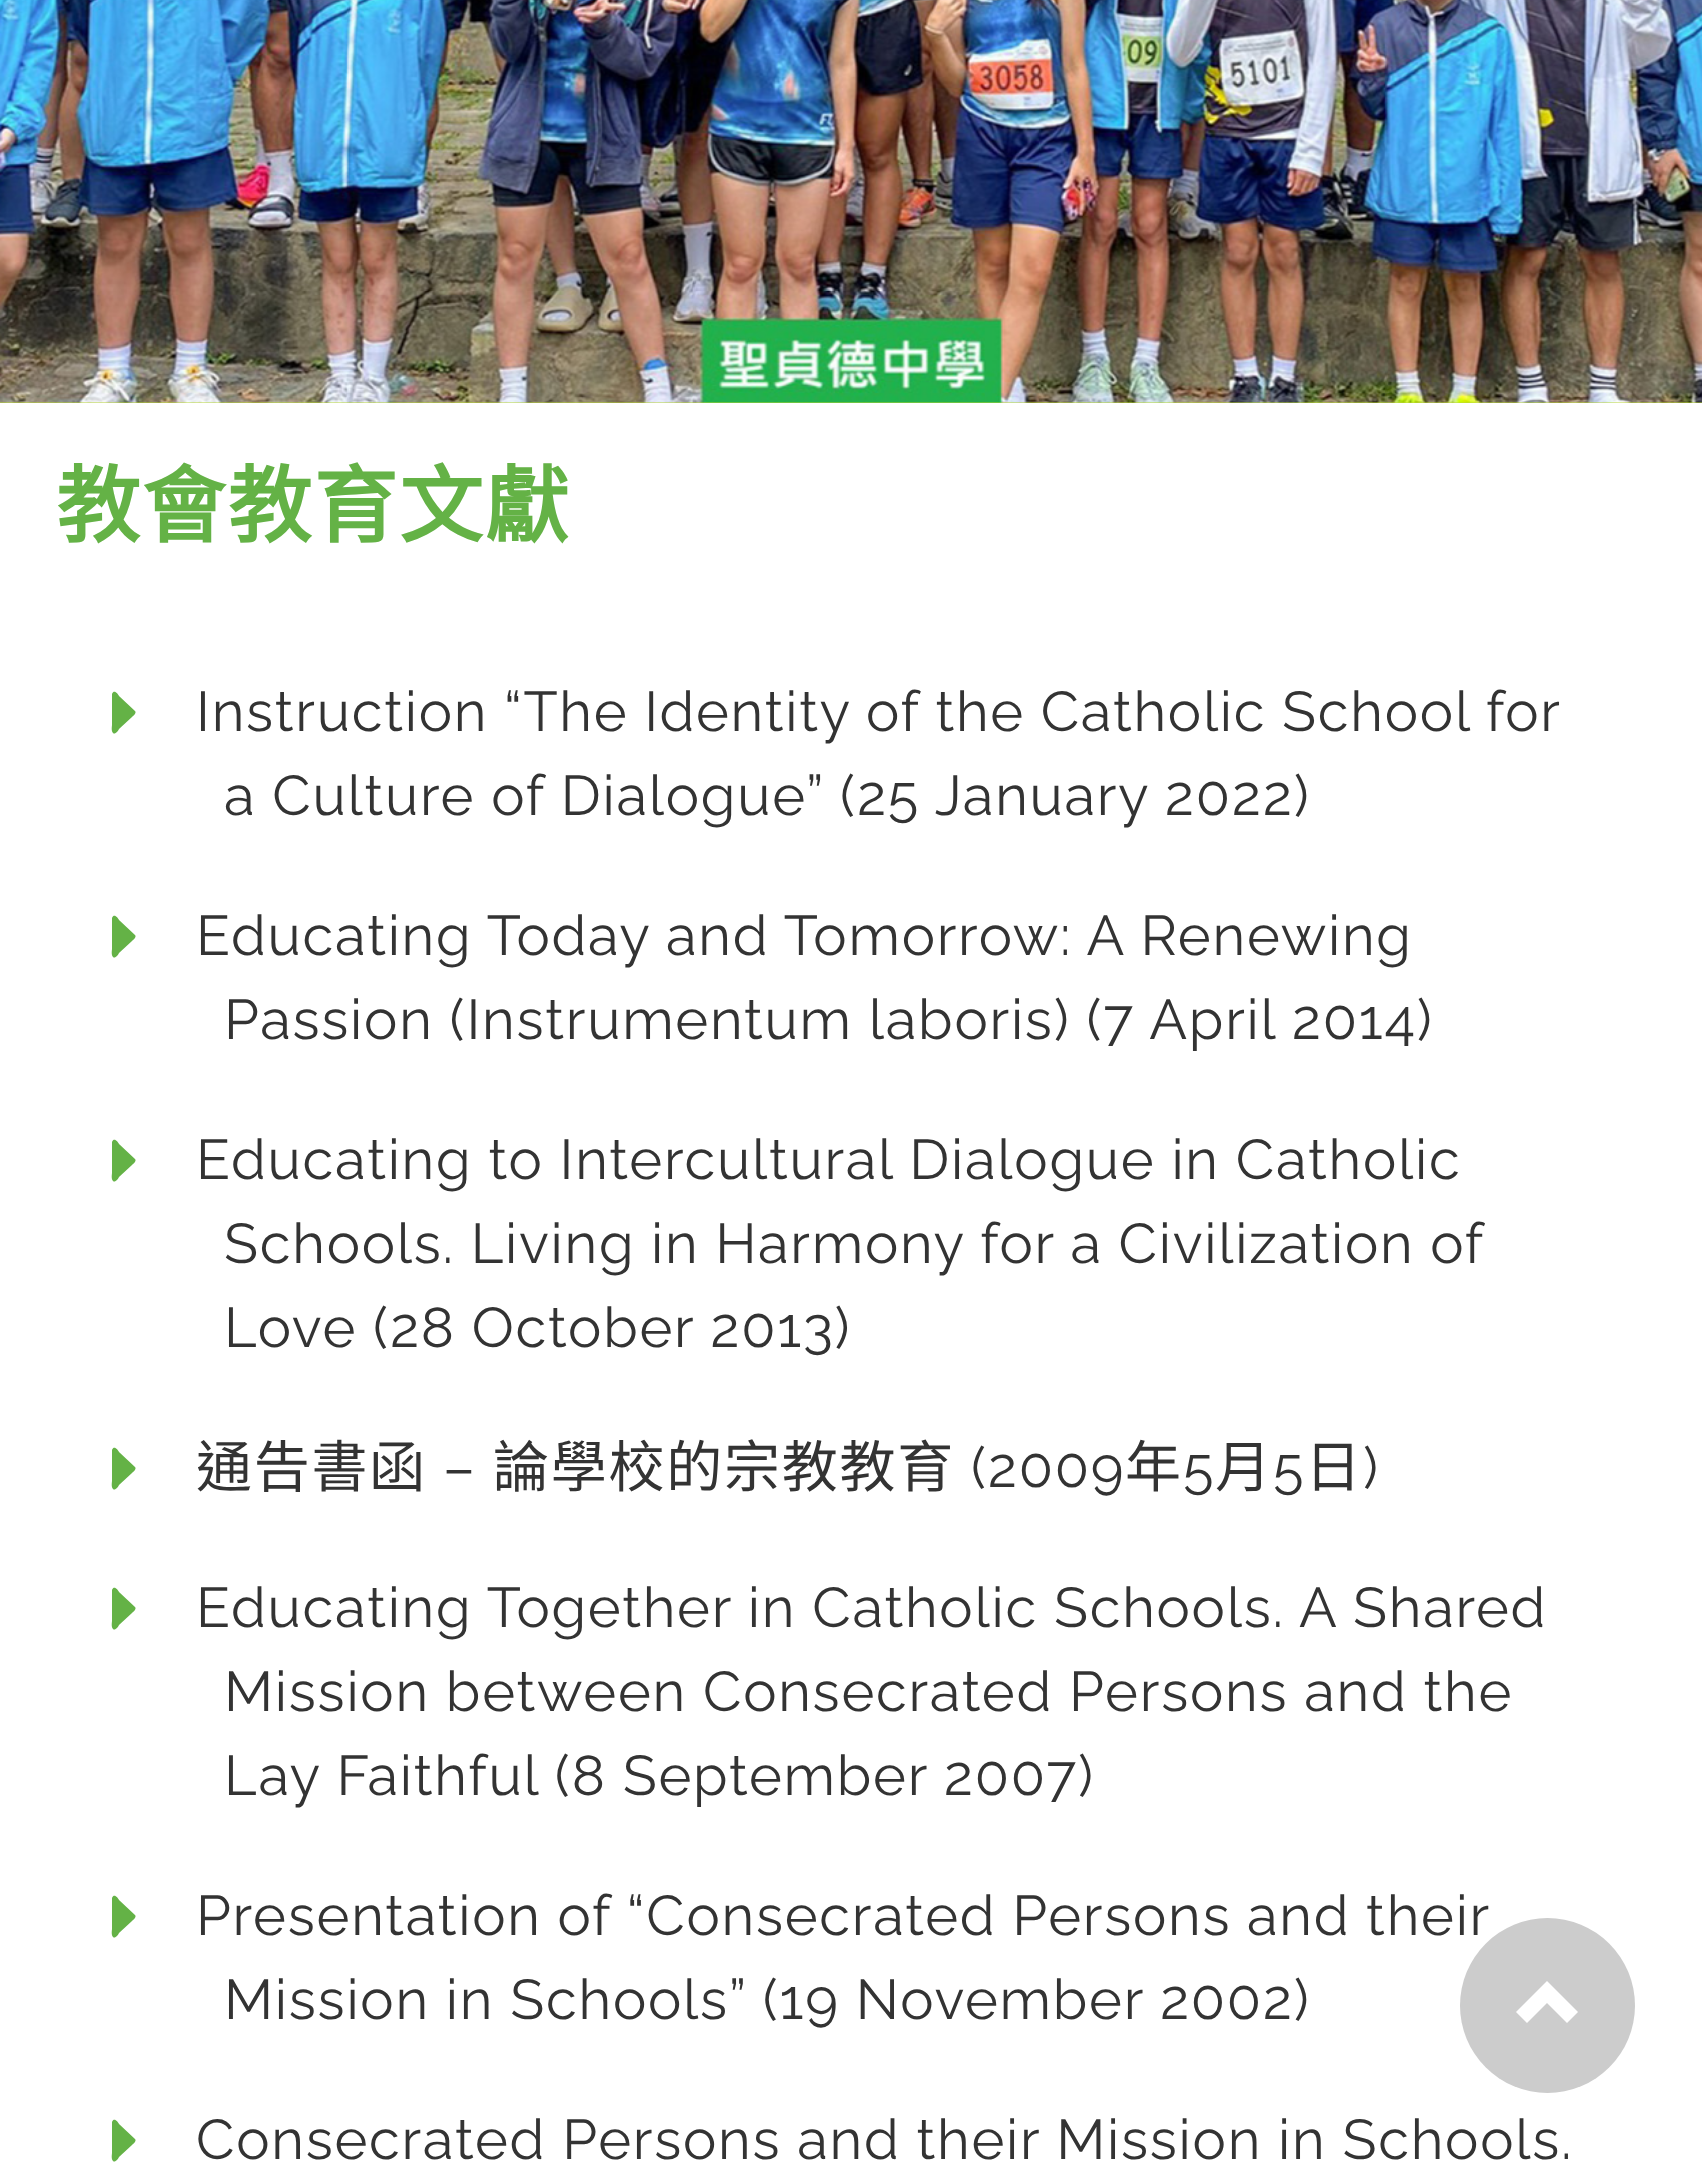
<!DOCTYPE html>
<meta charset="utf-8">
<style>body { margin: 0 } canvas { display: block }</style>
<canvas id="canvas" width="1702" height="2163"></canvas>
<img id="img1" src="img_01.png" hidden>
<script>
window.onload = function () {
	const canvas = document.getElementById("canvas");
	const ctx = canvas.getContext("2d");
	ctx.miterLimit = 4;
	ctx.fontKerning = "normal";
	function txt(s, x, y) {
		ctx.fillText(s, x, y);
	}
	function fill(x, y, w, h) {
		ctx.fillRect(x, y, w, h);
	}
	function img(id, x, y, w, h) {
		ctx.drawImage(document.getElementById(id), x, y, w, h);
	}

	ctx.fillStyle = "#FFFFFF";
	fill(0, 0, 1702, 2163);
	ctx.fillStyle = "#B9D738";
	fill(0, 402, 1702, 1);
	img("img1", 0, 0, 1702, 403);
	ctx.fillStyle = "#64B246";
	ctx.beginPath();
	ctx.moveTo(135, 711);
	ctx.bezierCurveTo(137, 713, 133, 716, 132, 717);
	ctx.lineTo(119, 729);
	ctx.bezierCurveTo(118, 731, 115, 735, 113, 733);
	ctx.bezierCurveTo(111, 731, 112, 726, 112, 725);
	ctx.lineTo(112, 694);
	ctx.bezierCurveTo(114, 689, 118, 694, 119, 696);
	ctx.closePath();
	ctx.fill();
	ctx.beginPath();
	ctx.moveTo(135, 935);
	ctx.bezierCurveTo(137, 937, 133, 940, 132, 941);
	ctx.lineTo(119, 953);
	ctx.bezierCurveTo(118, 955, 115, 959, 113, 957);
	ctx.bezierCurveTo(111, 955, 112, 950, 112, 949);
	ctx.lineTo(112, 918);
	ctx.bezierCurveTo(114, 913, 118, 918, 119, 920);
	ctx.closePath();
	ctx.fill();
	ctx.beginPath();
	ctx.moveTo(135, 1159);
	ctx.bezierCurveTo(137, 1161, 133, 1164, 132, 1165);
	ctx.lineTo(119, 1177);
	ctx.bezierCurveTo(118, 1179, 115, 1183, 113, 1181);
	ctx.bezierCurveTo(111, 1179, 112, 1174, 112, 1173);
	ctx.lineTo(112, 1142);
	ctx.bezierCurveTo(114, 1137, 118, 1142, 119, 1144);
	ctx.closePath();
	ctx.fill();
	ctx.beginPath();
	ctx.moveTo(135, 1467);
	ctx.bezierCurveTo(137, 1469, 133, 1472, 132, 1473);
	ctx.lineTo(119, 1485);
	ctx.bezierCurveTo(118, 1487, 115, 1491, 113, 1489);
	ctx.bezierCurveTo(111, 1487, 112, 1482, 112, 1481);
	ctx.lineTo(112, 1450);
	ctx.bezierCurveTo(114, 1445, 118, 1450, 119, 1452);
	ctx.closePath();
	ctx.fill();
	ctx.beginPath();
	ctx.moveTo(135, 1607);
	ctx.bezierCurveTo(137, 1609, 133, 1612, 132, 1613);
	ctx.lineTo(119, 1625);
	ctx.bezierCurveTo(118, 1627, 115, 1631, 113, 1629);
	ctx.bezierCurveTo(111, 1627, 112, 1622, 112, 1621);
	ctx.lineTo(112, 1590);
	ctx.bezierCurveTo(114, 1585, 118, 1590, 119, 1592);
	ctx.closePath();
	ctx.fill();
	ctx.beginPath();
	ctx.moveTo(135, 1915);
	ctx.bezierCurveTo(137, 1917, 133, 1920, 132, 1921);
	ctx.lineTo(119, 1933);
	ctx.bezierCurveTo(118, 1935, 115, 1939, 113, 1937);
	ctx.bezierCurveTo(111, 1935, 112, 1930, 112, 1929);
	ctx.lineTo(112, 1898);
	ctx.bezierCurveTo(114, 1893, 118, 1898, 119, 1900);
	ctx.closePath();
	ctx.fill();
	ctx.beginPath();
	ctx.moveTo(135, 2139);
	ctx.bezierCurveTo(137, 2141, 133, 2144, 132, 2145);
	ctx.lineTo(119, 2157);
	ctx.bezierCurveTo(118, 2159, 115, 2163, 113, 2161);
	ctx.bezierCurveTo(111, 2159, 112, 2154, 112, 2153);
	ctx.lineTo(112, 2122);
	ctx.bezierCurveTo(114, 2117, 118, 2122, 119, 2124);
	ctx.closePath();
	ctx.fill();
	ctx.letterSpacing = "1.75px";
	ctx.font = "bold 84px Noto Sans CJK HK";
	txt("教會教育文獻", 56, 536);
	ctx.wordSpacing = "-0.25px";
	ctx.font = "100 56px Raleway";
	ctx.fillStyle = "#333333";
	txt("Instruction “The Identity of the Catholic School for", 196, 731);
	ctx.wordSpacing = "0px";
	txt("a Culture of Dialogue” (25 January 2022)", 224, 815);
	txt("Educating Today and Tomorrow: A Renewing", 196, 955);
	txt("Passion (Instrumentum laboris) (7 April 2014)", 224, 1039);
	txt("Educating to Intercultural Dialogue in Catholic", 196, 1179);
	ctx.wordSpacing = "-0.25px";
	txt("Schools. Living in Harmony for a Civilization of", 224, 1263);
	ctx.wordSpacing = "0px";
	txt("Love (28 October 2013)", 224, 1347);
	ctx.font = "56px Noto Sans CJK HK";
	txt("通告書函", 196, 1487);
	ctx.font = "100 56px Raleway";
	txt("–", 443, 1487);
	ctx.font = "56px Noto Sans CJK HK";
	txt("論學校的宗教教育", 493, 1487);
	ctx.font = "100 56px Raleway";
	txt("(2009", 971, 1487);
	ctx.font = "56px Noto Sans CJK HK";
	txt("年", 1125, 1487);
	ctx.font = "100 56px Raleway";
	txt("5", 1183, 1487);
	ctx.font = "56px Noto Sans CJK HK";
	txt("月", 1215, 1487);
	ctx.font = "100 56px Raleway";
	txt("5", 1273, 1487);
	ctx.font = "56px Noto Sans CJK HK";
	txt("日", 1305, 1487);
	ctx.font = "100 56px Raleway";
	txt(")", 1363, 1487);
	txt("Educating Together in Catholic Schools. A Shared", 196, 1627);
	txt("Mission between Consecrated Persons and the", 224, 1711);
	txt("Lay Faithful (8 September 2007)", 224, 1795);
	ctx.wordSpacing = "-0.25px";
	txt("Presentation of “Consecrated Persons and their", 196, 1935);
	ctx.wordSpacing = "0px";
	txt("Mission in Schools” (19 November 2002)", 224, 2019);
	txt("Consecrated Persons and their Mission in Schools.", 196, 2159);
	ctx.fillStyle = "#CCCCCC";
	ctx.beginPath();
	ctx.arc(1547.5, 2005.5, 87.5, 0, Math.PI * 2);
	ctx.fill();
	ctx.fillStyle = "#FFFFFF";
	ctx.beginPath();
	ctx.moveTo(1578, 2012);
	ctx.lineTo(1567, 2023);
	ctx.lineTo(1547, 2003);
	ctx.lineTo(1527, 2023);
	ctx.lineTo(1516, 2012);
	ctx.lineTo(1547, 1981);
	ctx.closePath();
	ctx.fill();
};
</script>
